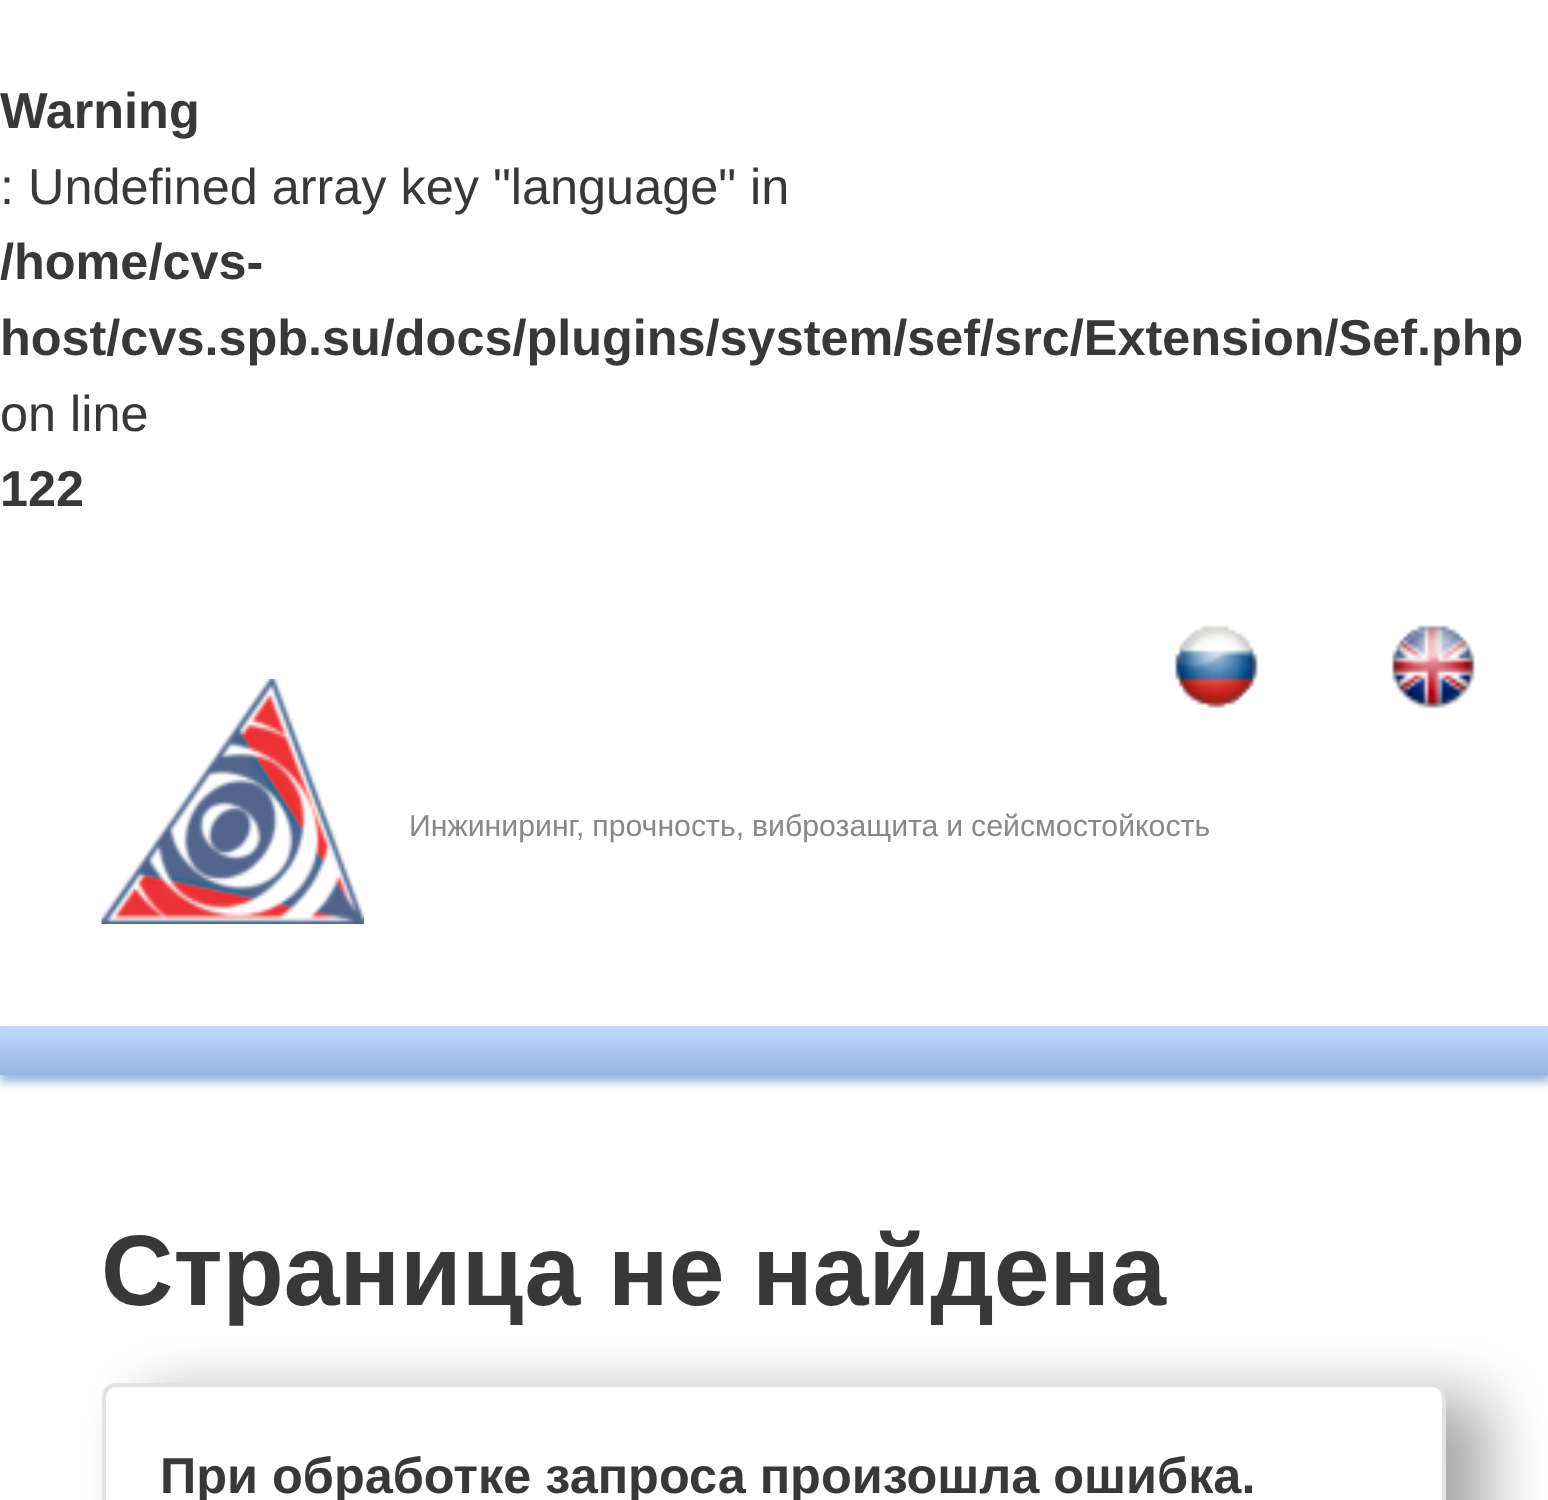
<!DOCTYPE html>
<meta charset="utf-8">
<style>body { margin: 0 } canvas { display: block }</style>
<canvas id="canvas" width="1548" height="1500"></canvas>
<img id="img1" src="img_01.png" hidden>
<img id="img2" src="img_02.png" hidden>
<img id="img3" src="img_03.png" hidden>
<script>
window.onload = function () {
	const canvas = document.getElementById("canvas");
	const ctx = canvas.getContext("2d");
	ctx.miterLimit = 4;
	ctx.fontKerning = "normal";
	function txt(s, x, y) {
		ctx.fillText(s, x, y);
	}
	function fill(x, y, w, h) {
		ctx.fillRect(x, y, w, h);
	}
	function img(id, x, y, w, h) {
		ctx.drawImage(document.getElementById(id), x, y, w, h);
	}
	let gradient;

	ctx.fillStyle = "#FFFFFF";
	fill(0, 0, 1548, 1500);
	ctx.fillStyle = "rgba(3, 67, 165, 0.4)";
	ctx.filter = "blur(5px)";
	ctx.beginPath();
	ctx.rect(0, 1033, 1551, 49);
	ctx.fill();
	ctx.filter = "none";
	gradient = ctx.createLinearGradient(775, 1026, 775, 1075);
	gradient.addColorStop(0, "#C0D8FD");
	gradient.addColorStop(1, "#92B6E3");
	ctx.fillStyle = gradient;
	fill(0, 1026, 1548, 49);
	img("img1", 1174, 625, 84, 84);
	img("img2", 1391, 625, 84, 84);
	img("img3", 101, 679, 263, 245);
	ctx.fillStyle = "rgba(0, 0, 0, 0.35)";
	ctx.filter = "blur(31.5px)";
	ctx.beginPath();
	ctx.roundRect(144, 1397, 1344, 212, 14);
	ctx.fill();
	ctx.filter = "none";
	ctx.fillStyle = "#FFFFFF";
	ctx.beginPath();
	ctx.roundRect(104, 1385, 1340, 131, 12);
	ctx.fill();
	ctx.strokeStyle = "#DFE3E7";
	ctx.lineWidth = 4;
	ctx.stroke();
	ctx.font = "bold 50.4px Liberation Sans";
	ctx.fillStyle = "#383838";
	txt("Warning", 0, 128);
	ctx.font = "50.4px Liberation Sans";
	txt(": Undefined array key \"language\" in", 0, 204);
	ctx.font = "bold 50.4px Liberation Sans";
	txt("/home/cvs-", 0, 279);
	txt("host/cvs.spb.su/docs/plugins/system/sef/src/Extension/Sef.php", 0, 355);
	ctx.font = "50.4px Liberation Sans";
	txt("on line", 0, 431);
	ctx.font = "bold 50.4px Liberation Sans";
	txt("122", 0, 506);
	ctx.wordSpacing = "-0.5px";
	ctx.font = "30.25px Liberation Sans";
	ctx.fillStyle = "#888888";
	txt("Инжиниринг, прочность, виброзащита и сейсмостойкость", 409, 836);
	ctx.wordSpacing = "0px";
	ctx.font = "bold 100.25px Liberation Sans";
	ctx.fillStyle = "#383838";
	txt("Страница не найдена", 101, 1305);
	ctx.font = "bold 50.4px Liberation Sans";
	txt("При обработке запроса произошла ошибка.", 160, 1493);
};
</script>
